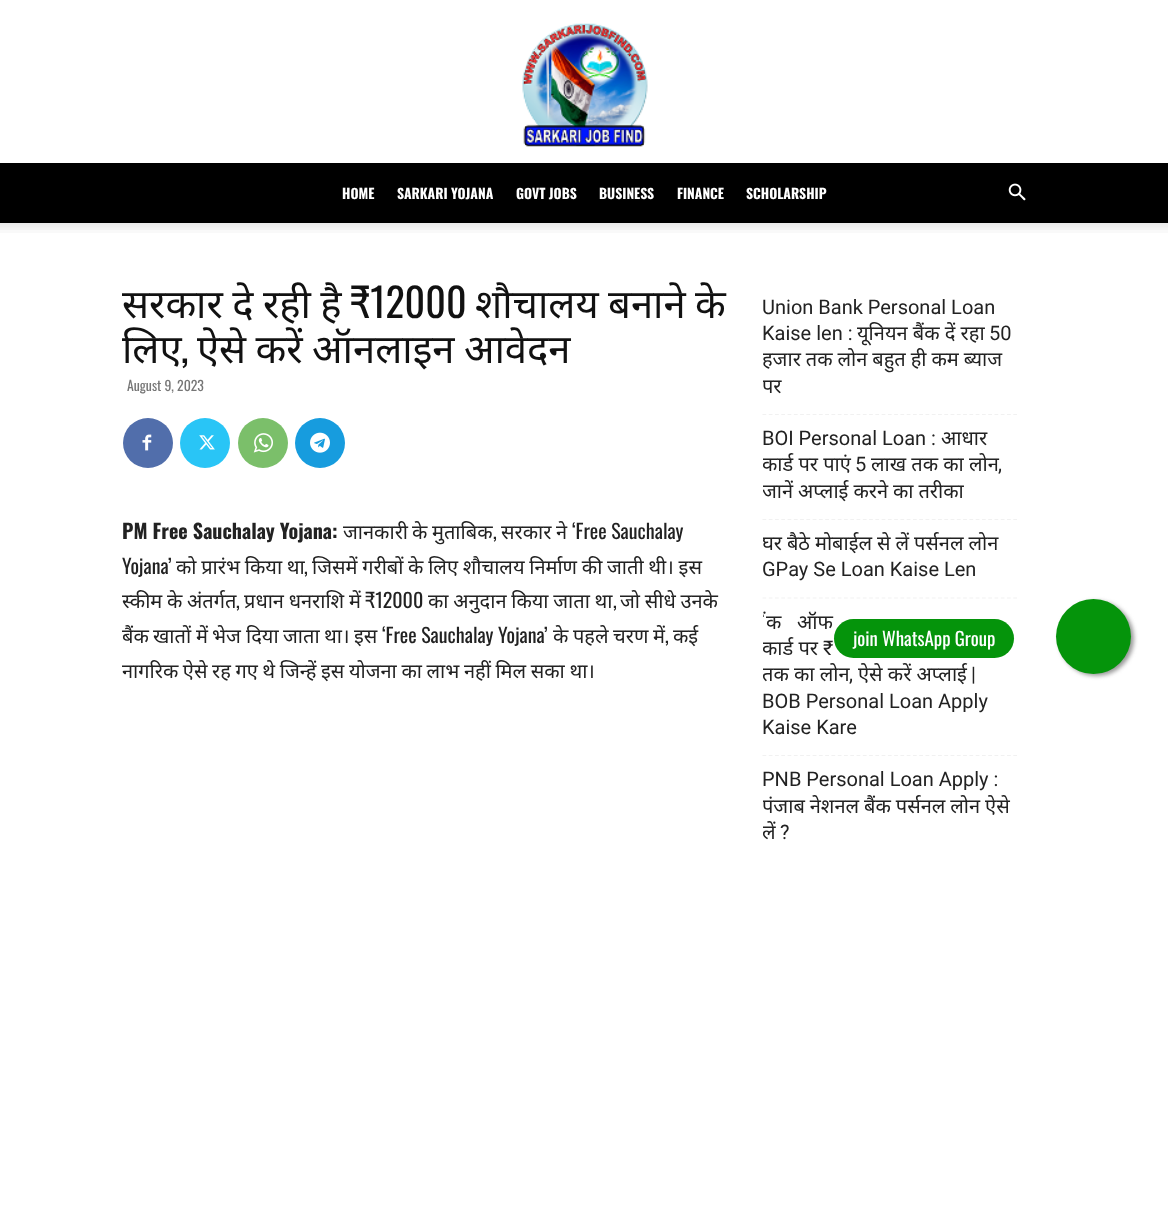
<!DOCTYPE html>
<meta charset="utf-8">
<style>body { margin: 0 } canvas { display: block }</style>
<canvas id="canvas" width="1168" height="1210"></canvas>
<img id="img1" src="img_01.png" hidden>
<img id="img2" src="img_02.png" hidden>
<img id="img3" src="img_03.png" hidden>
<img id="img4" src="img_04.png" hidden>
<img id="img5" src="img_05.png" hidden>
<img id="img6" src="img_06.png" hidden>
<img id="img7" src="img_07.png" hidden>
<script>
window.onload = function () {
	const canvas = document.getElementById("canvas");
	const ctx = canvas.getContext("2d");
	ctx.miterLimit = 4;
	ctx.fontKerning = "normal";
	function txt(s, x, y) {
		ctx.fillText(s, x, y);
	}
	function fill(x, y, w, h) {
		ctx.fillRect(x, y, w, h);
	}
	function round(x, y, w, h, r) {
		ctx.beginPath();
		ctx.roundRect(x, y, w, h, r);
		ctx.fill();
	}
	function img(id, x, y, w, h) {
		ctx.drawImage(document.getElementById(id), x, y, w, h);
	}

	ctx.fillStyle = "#FFFFFF";
	fill(0, 0, 1168, 1210);
	img("img1", 522, 23, 126, 124);
	ctx.fillStyle = "#000000";
	fill(0, 163, 1168, 60);
	img("img2", 1008, 183, 18, 18);
	img("img3", 0, 223, 1168, 10);
	ctx.fillStyle = "#516EAB";
	ctx.beginPath();
	ctx.arc(148, 443, 25, 0, Math.PI * 2);
	ctx.fill();
	img("img4", 142, 434, 10, 17);
	ctx.fillStyle = "#29C5F6";
	ctx.beginPath();
	ctx.arc(205, 443, 25, 0, Math.PI * 2);
	ctx.fill();
	img("img5", 199, 435, 16, 15);
	ctx.fillStyle = "#7BBF6A";
	ctx.beginPath();
	ctx.arc(263, 443, 25, 0, Math.PI * 2);
	ctx.fill();
	img("img6", 253, 433, 20, 20);
	ctx.fillStyle = "#179CDE";
	ctx.beginPath();
	ctx.arc(320, 443, 25, 0, Math.PI * 2);
	ctx.fill();
	img("img7", 310, 432, 20, 21);
	ctx.beginPath();
	ctx.moveTo(762.5, 414.5);
	ctx.lineTo(1017.5, 414.5);
	ctx.strokeStyle = "#F1F1F1";
	ctx.lineWidth = 1.2;
	ctx.setLineDash([3.75, 2.52]);
	ctx.stroke();
	ctx.beginPath();
	ctx.moveTo(762.5, 519.5);
	ctx.lineTo(1017.5, 519.5);
	ctx.stroke();
	ctx.beginPath();
	ctx.moveTo(762.5, 598);
	ctx.lineTo(1017.5, 598);
	ctx.stroke();
	ctx.beginPath();
	ctx.moveTo(762.5, 755.5);
	ctx.lineTo(1017.5, 755.5);
	ctx.stroke();
	ctx.fillStyle = "#999999";
	ctx.filter = "blur(2px)";
	ctx.beginPath();
	ctx.roundRect(1059, 601, 75, 75, 37.5);
	ctx.fill();
	ctx.filter = "none";
	ctx.fillStyle = "#05940B";
	ctx.beginPath();
	ctx.arc(1093.5, 636.5, 37.5, 0, Math.PI * 2);
	ctx.fill();
	round(834, 619, 180, 39, 19.5);
	ctx.font = "bold 13.75px Oswald";
	ctx.fillStyle = "#FFFFFF";
	txt("HOME", 342, 199);
	txt("SARKARI YOJANA", 397, 199);
	txt("GOVT JOBS", 516, 199);
	txt("BUSINESS", 599, 199);
	txt("FINANCE", 677, 199);
	txt("SCHOLARSHIP", 746, 199);
	ctx.wordSpacing = "-1px";
	ctx.font = "40px Noto Sans";
	ctx.fillStyle = "#111111";
	txt("सरकार दे रही है", 122, 318);
	ctx.wordSpacing = "0px";
	ctx.font = "40px Oswald";
	txt("₹12000", 350, 318);
	ctx.wordSpacing = "-1px";
	ctx.font = "40px Noto Sans";
	txt("शौचालय बनाने के", 475, 318);
	ctx.wordSpacing = "0px";
	txt("लिए", 122, 363);
	ctx.font = "40px Oswald";
	txt(",", 181, 363);
	ctx.wordSpacing = "-1px";
	ctx.font = "40px Noto Sans";
	txt("ऐसे करें ऑनलाइन आवेदन", 197, 363);
	ctx.wordSpacing = "0px";
	ctx.font = "13.75px Oswald";
	ctx.fillStyle = "#767676";
	txt("August 9, 2023", 127, 391);
	ctx.font = "bold 20px Oswald";
	ctx.fillStyle = "#222222";
	txt("PM Free Sauchalay Yojana:", 122, 539);
	ctx.font = "20px Noto Sans";
	txt("जानकारी", 343, 539);
	txt("के", 412, 539);
	txt("मुताबिक", 432, 539);
	ctx.font = "20px Oswald";
	txt(",", 493, 539);
	ctx.font = "20px Noto Sans";
	txt("सरकार", 501, 539);
	txt("ने", 556, 539);
	ctx.font = "20px Oswald";
	txt("‘Free Sauchalay", 572, 539);
	txt("Yojana’", 122, 574);
	ctx.wordSpacing = "-0.5px";
	ctx.font = "20px Noto Sans";
	txt("को प्रारंभ किया था", 176, 574);
	ctx.wordSpacing = "0px";
	ctx.font = "20px Oswald";
	txt(",", 304, 574);
	ctx.wordSpacing = "-0.5px";
	ctx.font = "20px Noto Sans";
	txt("जिसमें गरीबों के लिए शौचालय निर्माण की जाती थी। इस", 312, 574);
	txt("स्कीम के अंतर्गत", 122, 608);
	ctx.wordSpacing = "0px";
	ctx.font = "20px Oswald";
	txt(",", 236, 608);
	ctx.wordSpacing = "-0.5px";
	ctx.font = "20px Noto Sans";
	txt("प्रधान धनराशि में", 244, 608);
	ctx.wordSpacing = "0px";
	ctx.font = "20px Oswald";
	txt("₹12000", 365, 608);
	ctx.wordSpacing = "-0.5px";
	ctx.font = "20px Noto Sans";
	txt("का अनुदान किया जाता था", 428, 608);
	ctx.wordSpacing = "0px";
	ctx.font = "20px Oswald";
	txt(",", 613, 608);
	ctx.wordSpacing = "-0.5px";
	ctx.font = "20px Noto Sans";
	txt("जो सीधे उनके", 620, 608);
	ctx.wordSpacing = "0px";
	txt("बैंक", 122, 643);
	txt("खातों", 153, 643);
	txt("में", 196, 643);
	txt("भेज", 212, 643);
	txt("दिया", 246, 643);
	txt("जाता", 283, 643);
	txt("था।", 324, 643);
	txt("इस", 354, 643);
	ctx.font = "20px Oswald";
	txt("‘Free Sauchalay Yojana’", 382, 643);
	ctx.font = "20px Noto Sans";
	txt("के", 553, 643);
	txt("पहले", 573, 643);
	txt("चरण", 613, 643);
	txt("में", 653, 643);
	ctx.font = "20px Oswald";
	txt(",", 665, 643);
	ctx.font = "20px Noto Sans";
	txt("कई", 673, 643);
	ctx.wordSpacing = "-0.6px";
	txt("नागरिक ऐसे रह गए थे जिन्हें इस योजना का लाभ नहीं मिल सका था।", 122, 678);
	ctx.wordSpacing = "0px";
	ctx.font = "20px Roboto";
	txt("Union Bank Personal Loan", 762, 314);
	txt("Kaise len :", 762, 340);
	ctx.font = "20px Noto Sans";
	txt("यूनियन बैंक दें रहा", 857, 340);
	ctx.font = "20px Roboto";
	txt("50", 989, 340);
	ctx.save();
	ctx.beginPath();
	ctx.rect(763, 278, 285, 600);
	ctx.clip();
	ctx.wordSpacing = "-0.25px";
	ctx.font = "20px Noto Sans";
	txt("हजार तक लोन बहुत ही कम ब्याज", 762, 366);
	ctx.wordSpacing = "0px";
	txt("पर", 762, 393);
	ctx.restore();
	txt("BOI Personal Loan :", 762, 445);
	ctx.font = "20px Noto Sans";
	txt("आधार", 941, 445);
	ctx.save();
	ctx.beginPath();
	ctx.rect(763, 278, 285, 600);
	ctx.clip();
	txt("कार्ड पर पाएं", 762, 471);
	ctx.restore();
	ctx.font = "20px Roboto";
	txt("5", 855, 471);
	ctx.font = "20px Noto Sans";
	txt("लाख तक का लोन", 871, 471);
	ctx.font = "20px Roboto";
	txt(",", 998, 471);
	ctx.save();
	ctx.beginPath();
	ctx.rect(763, 278, 285, 600);
	ctx.clip();
	ctx.wordSpacing = "-0.25px";
	ctx.font = "20px Noto Sans";
	txt("जानें अप्लाई करने का तरीका", 762, 498);
	txt("घर बैठे मोबाईल से लें पर्सनल लोन", 762, 550);
	ctx.restore();
	txt("GPay Se Loan Kaise Len", 762, 576);
	ctx.save();
	ctx.beginPath();
	ctx.rect(763, 278, 285, 600);
	ctx.clip();
	ctx.wordSpacing = "-0.25px";
	ctx.font = "20px Noto Sans";
	txt("ैंक", 766, 629);
	txt("ऑफ", 797, 629);
	ctx.wordSpacing = "0px";
	txt("कार्ड पर", 762, 655);
	ctx.restore();
	txt("₹", 823, 655);
	ctx.save();
	ctx.beginPath();
	ctx.rect(763, 278, 285, 600);
	ctx.clip();
	ctx.font = "20px Noto Sans";
	txt("तक का लोन", 762, 681);
	ctx.restore();
	txt("|", 971, 681);
	txt(",", 849, 681);
	ctx.font = "20px Noto Sans";
	txt("ऐसे करें अप्लाई", 858, 681);
	ctx.font = "20px Roboto";
	txt("BOB Personal Loan Apply", 762, 708);
	txt("Kaise Kare", 762, 734);
	txt("PNB Personal Loan Apply :", 762, 786);
	ctx.save();
	ctx.beginPath();
	ctx.rect(763, 278, 285, 600);
	ctx.clip();
	ctx.wordSpacing = "-0.25px";
	ctx.font = "20px Noto Sans";
	txt("पंजाब नेशनल बैंक पर्सनल लोन ऐसे", 762, 813);
	ctx.wordSpacing = "0px";
	txt("लें", 762, 839);
	ctx.restore();
	txt("?", 780, 839);
	ctx.font = "18.75px Oswald";
	ctx.fillStyle = "#FFFFFF";
	txt("join WhatsApp Group", 853, 646);
};
</script>
